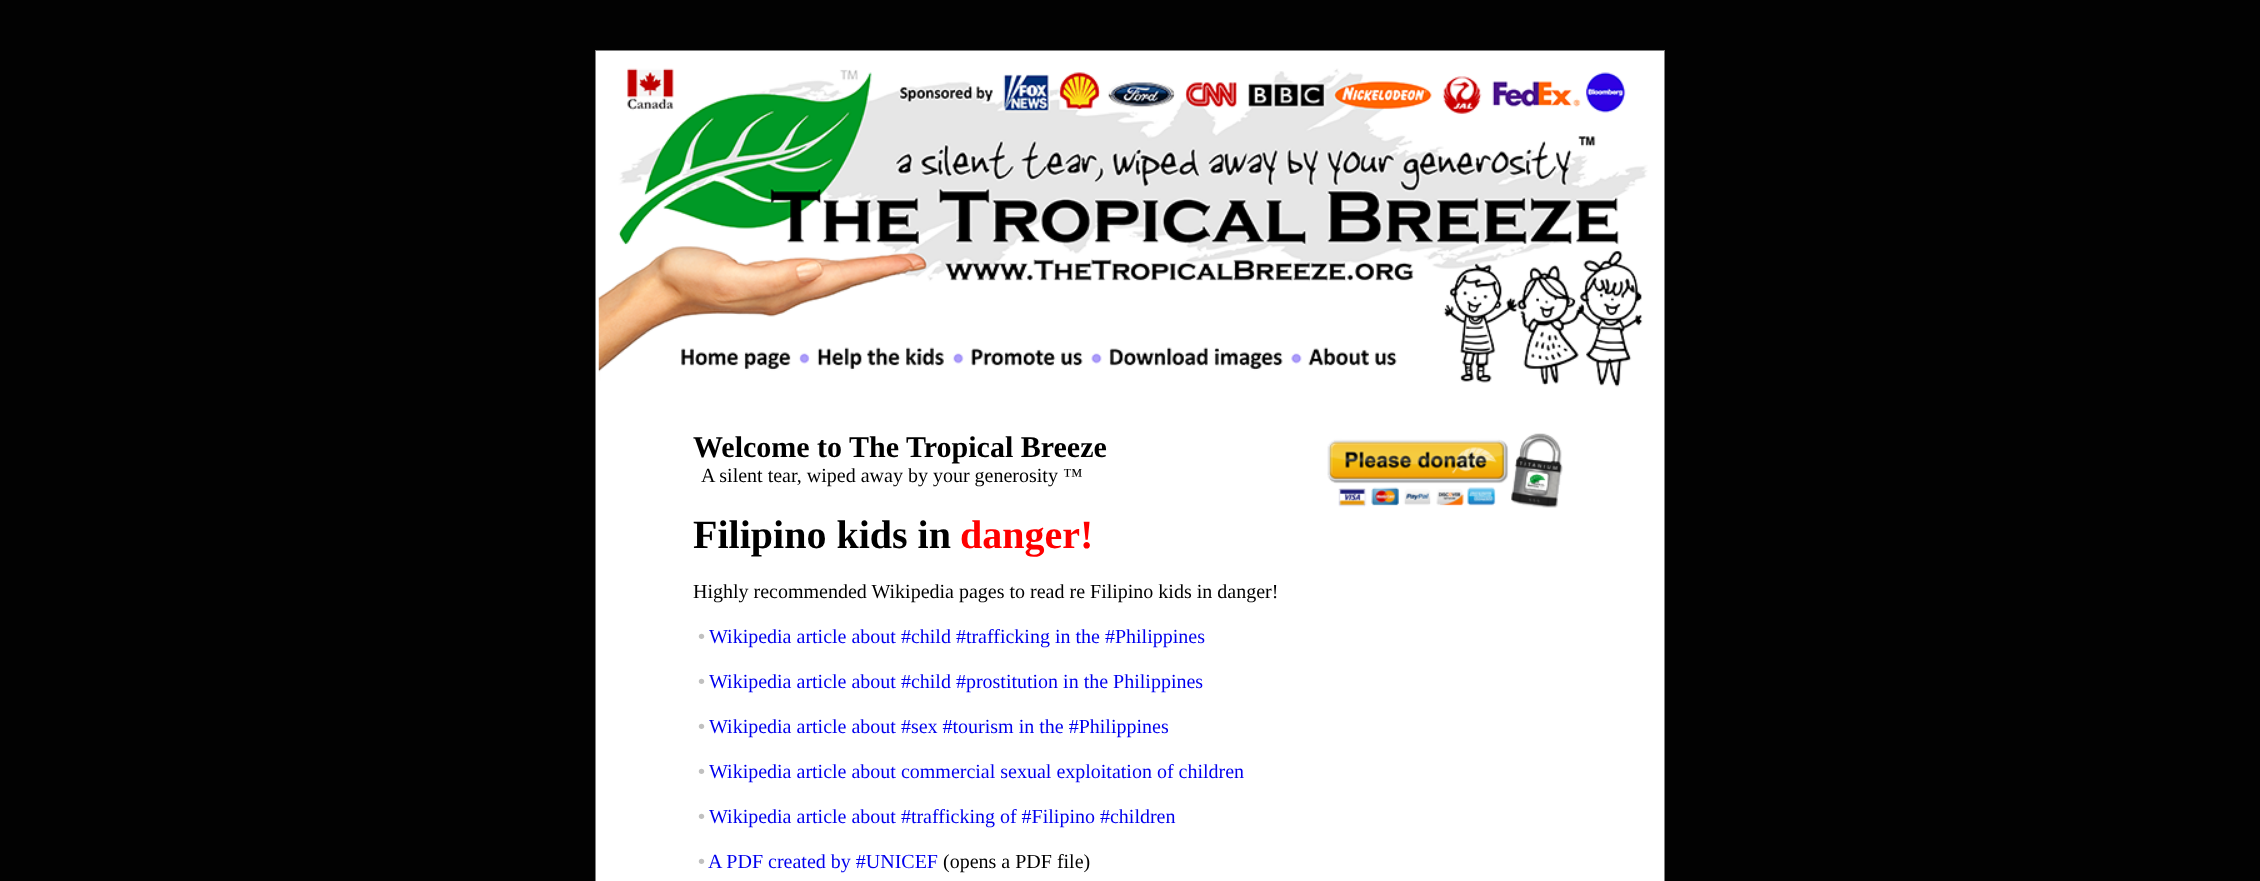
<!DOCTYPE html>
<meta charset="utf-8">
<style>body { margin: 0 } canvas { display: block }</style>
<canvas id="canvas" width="2260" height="881"></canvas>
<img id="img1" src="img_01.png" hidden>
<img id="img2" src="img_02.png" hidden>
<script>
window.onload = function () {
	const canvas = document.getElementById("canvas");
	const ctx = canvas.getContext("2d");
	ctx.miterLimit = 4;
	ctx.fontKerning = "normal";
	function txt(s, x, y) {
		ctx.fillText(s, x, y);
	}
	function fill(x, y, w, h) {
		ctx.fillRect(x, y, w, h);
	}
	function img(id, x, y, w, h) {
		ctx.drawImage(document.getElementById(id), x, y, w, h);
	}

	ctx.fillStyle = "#020202";
	fill(0, 0, 2260, 881);
	ctx.fillStyle = "#FFFFFF";
	fill(596, 51, 1068, 830);
	ctx.fillStyle = "#808080";
	fill(595, 50, 1070, 1);
	fill(1664, 50, 1, 831);
	fill(595, 50, 1, 831);
	img("img1", 598, 68, 1050, 319);
	img("img2", 1327, 433, 236, 75);
	ctx.font = "bold 30px Liberation Serif";
	ctx.fillStyle = "#000000";
	txt("Welcome to The Tropical Breeze", 693, 457);
	ctx.font = "20px Liberation Serif";
	txt("A silent tear, wiped away by your generosity ™", 701, 482);
	ctx.font = "bold 40px Liberation Serif";
	txt("Filipino kids in", 693, 548);
	ctx.fillStyle = "#FF0000";
	txt("danger!", 960, 548);
	ctx.font = "20px Liberation Serif";
	ctx.fillStyle = "#000000";
	txt("Highly recommended Wikipedia pages to read re Filipino kids in danger!", 693, 598);
	ctx.font = "bold 20px Liberation Serif";
	ctx.fillStyle = "#C0C0C0";
	txt("•", 698, 643);
	ctx.font = "20px Liberation Serif";
	ctx.fillStyle = "#0000EE";
	txt("Wikipedia article about #child #trafficking in the #Philippines", 709, 643);
	ctx.font = "bold 20px Liberation Serif";
	ctx.fillStyle = "#C0C0C0";
	txt("•", 698, 688);
	ctx.font = "20px Liberation Serif";
	ctx.fillStyle = "#0000EE";
	txt("Wikipedia article about #child #prostitution in the Philippines", 709, 688);
	ctx.font = "bold 20px Liberation Serif";
	ctx.fillStyle = "#C0C0C0";
	txt("•", 698, 733);
	ctx.font = "20px Liberation Serif";
	ctx.fillStyle = "#0000EE";
	txt("Wikipedia article about #sex #tourism in the #Philippines", 709, 733);
	ctx.font = "bold 20px Liberation Serif";
	ctx.fillStyle = "#C0C0C0";
	txt("•", 698, 778);
	ctx.font = "20px Liberation Serif";
	ctx.fillStyle = "#0000EE";
	txt("Wikipedia article about commercial sexual exploitation of children", 709, 778);
	ctx.font = "bold 20px Liberation Serif";
	ctx.fillStyle = "#C0C0C0";
	txt("•", 698, 823);
	ctx.font = "20px Liberation Serif";
	ctx.fillStyle = "#0000EE";
	txt("Wikipedia article about #trafficking of #Filipino #children", 709, 823);
	ctx.font = "bold 20px Liberation Serif";
	ctx.fillStyle = "#C0C0C0";
	txt("•", 698, 868);
	ctx.font = "20px Liberation Serif";
	ctx.fillStyle = "#0000EE";
	txt("A PDF created by #UNICEF", 708, 868);
	ctx.fillStyle = "#000000";
	txt("(opens a PDF file)", 943, 868);
};
</script>
